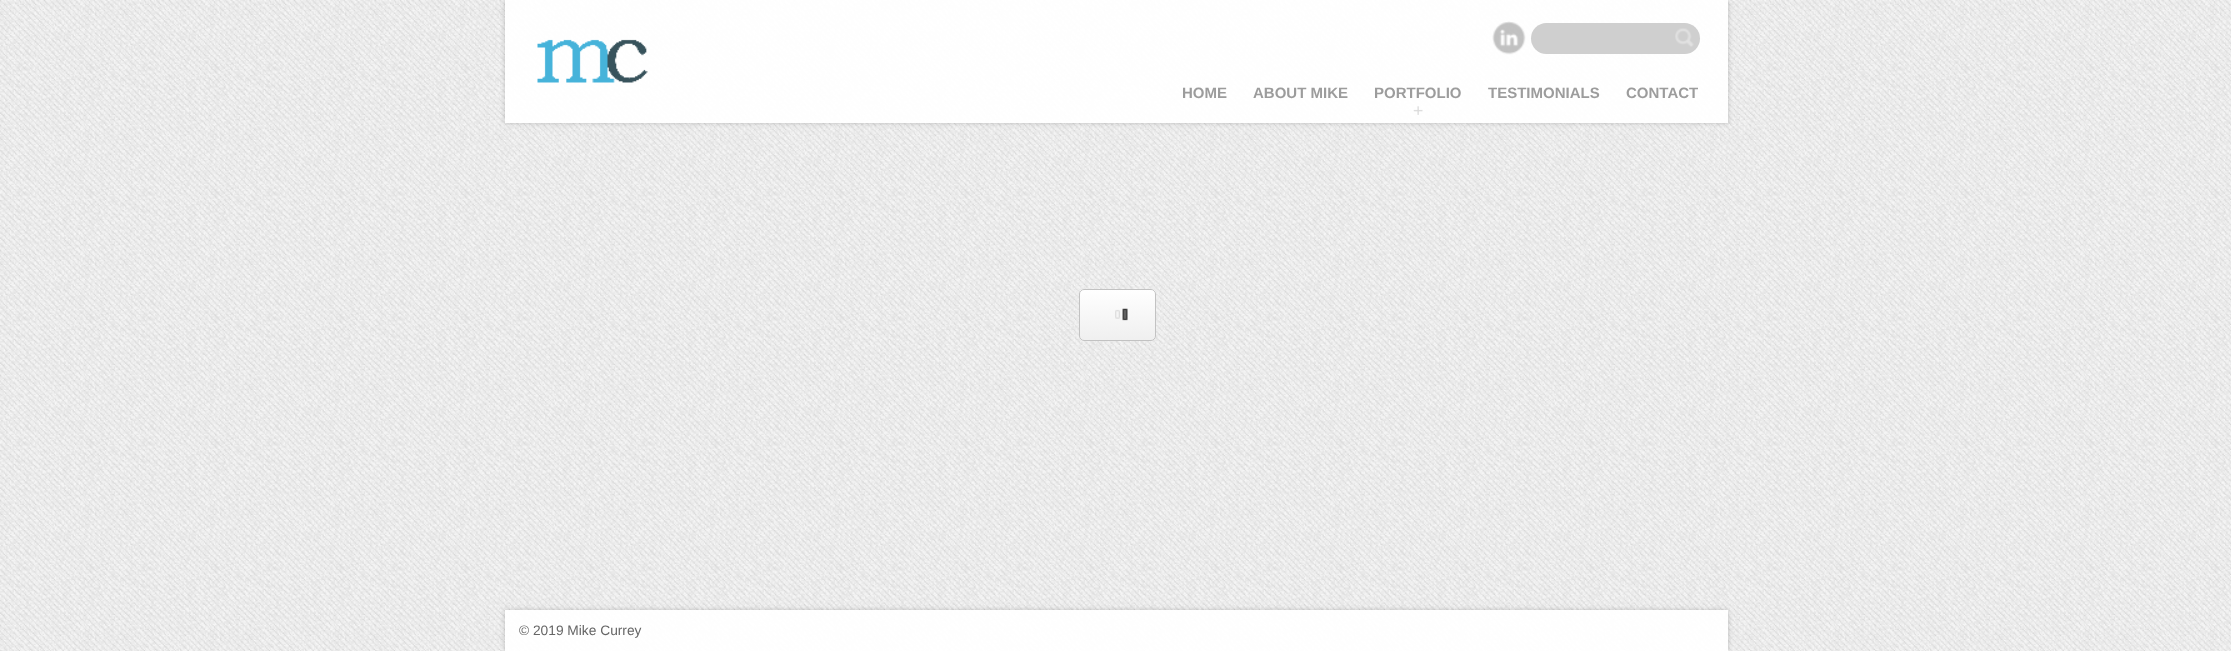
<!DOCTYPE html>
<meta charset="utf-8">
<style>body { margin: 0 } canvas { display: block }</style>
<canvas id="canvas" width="2231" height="651"></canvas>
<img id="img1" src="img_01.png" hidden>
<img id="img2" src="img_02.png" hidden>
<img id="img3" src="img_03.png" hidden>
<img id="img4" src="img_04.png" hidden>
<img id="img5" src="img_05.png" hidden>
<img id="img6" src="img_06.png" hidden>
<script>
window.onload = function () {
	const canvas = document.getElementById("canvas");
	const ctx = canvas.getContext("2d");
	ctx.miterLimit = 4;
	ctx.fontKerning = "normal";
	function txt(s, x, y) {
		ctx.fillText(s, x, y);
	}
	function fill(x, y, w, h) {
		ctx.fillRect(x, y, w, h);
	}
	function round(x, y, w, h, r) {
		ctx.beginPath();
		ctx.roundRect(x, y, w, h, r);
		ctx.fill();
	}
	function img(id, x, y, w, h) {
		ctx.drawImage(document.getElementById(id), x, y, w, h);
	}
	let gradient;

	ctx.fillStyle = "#FFFFFF";
	fill(0, 0, 2231, 651);
	img("img1", 0, 0, 2231, 651);
	ctx.save();
	ctx.beginPath();
	ctx.moveTo(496, 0);
	ctx.lineTo(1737, 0);
	ctx.lineTo(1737, 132);
	ctx.lineTo(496, 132);
	ctx.closePath();
	ctx.moveTo(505, 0);
	ctx.lineTo(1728, 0);
	ctx.lineTo(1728, 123);
	ctx.lineTo(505, 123);
	ctx.closePath();
	ctx.clip("evenodd");
	ctx.fillStyle = "rgba(0, 0, 0, 0.2)";
	ctx.filter = "blur(2.5px)";
	ctx.beginPath();
	ctx.rect(505, 0, 1223, 123);
	ctx.fill();
	ctx.filter = "none";
	ctx.restore();
	ctx.fillStyle = "rgba(255, 255, 255, 0.95)";
	fill(505, 0, 1223, 123);
	img("img2", 537, 39, 111, 44);
	img("img3", 1492, 21, 34, 34);
	ctx.fillStyle = "#CFCFCF";
	round(1531, 23, 169, 31, 15.5);
	img("img4", 1675, 28, 19, 19);
	img("img5", 1413, 106, 10, 9);
	ctx.save();
	ctx.beginPath();
	ctx.moveTo(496, 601);
	ctx.lineTo(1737, 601);
	ctx.lineTo(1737, 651);
	ctx.lineTo(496, 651);
	ctx.closePath();
	ctx.moveTo(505, 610);
	ctx.lineTo(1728, 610);
	ctx.lineTo(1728, 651);
	ctx.lineTo(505, 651);
	ctx.closePath();
	ctx.clip("evenodd");
	ctx.fillStyle = "rgba(0, 0, 0, 0.2)";
	ctx.filter = "blur(2.5px)";
	ctx.beginPath();
	ctx.rect(505, 610, 1223, 41);
	ctx.fill();
	ctx.filter = "none";
	ctx.restore();
	ctx.fillStyle = "rgba(255, 255, 255, 0.95)";
	fill(505, 610, 1223, 41);
	ctx.fillStyle = "rgba(255, 255, 255, 0.9)";
	round(1079, 289, 77, 52, 5);
	ctx.save();
	ctx.beginPath();
	ctx.roundRect(1079, 289, 77, 52, 5);
	ctx.clip();
	gradient = ctx.createLinearGradient(1118, 290, 1118, 340);
	gradient.addColorStop(0, "rgba(255, 255, 255, 0.9)");
	gradient.addColorStop(1, "rgba(238, 238, 238, 0.9)");
	ctx.fillStyle = gradient;
	fill(1080, 290, 75, 50);
	ctx.restore();
	ctx.beginPath();
	ctx.roundRect(1079.5, 289.5, 76, 51, 4.5);
	ctx.strokeStyle = "rgba(187, 187, 187, 0.9)";
	ctx.stroke();
	img("img6", 1115, 308, 13, 13);
	ctx.font = "bold 15px Liberation Sans";
	ctx.fillStyle = "#9C9C9C";
	txt("HOME", 1182, 98);
	txt("ABOUT MIKE", 1253, 98);
	txt("PORTFOLIO", 1374, 98);
	txt("TESTIMONIALS", 1488, 98);
	txt("CONTACT", 1626, 98);
	ctx.font = "13.75px Liberation Sans";
	ctx.fillStyle = "#666666";
	txt("© 2019 Mike Currey", 519, 635);
};
</script>
